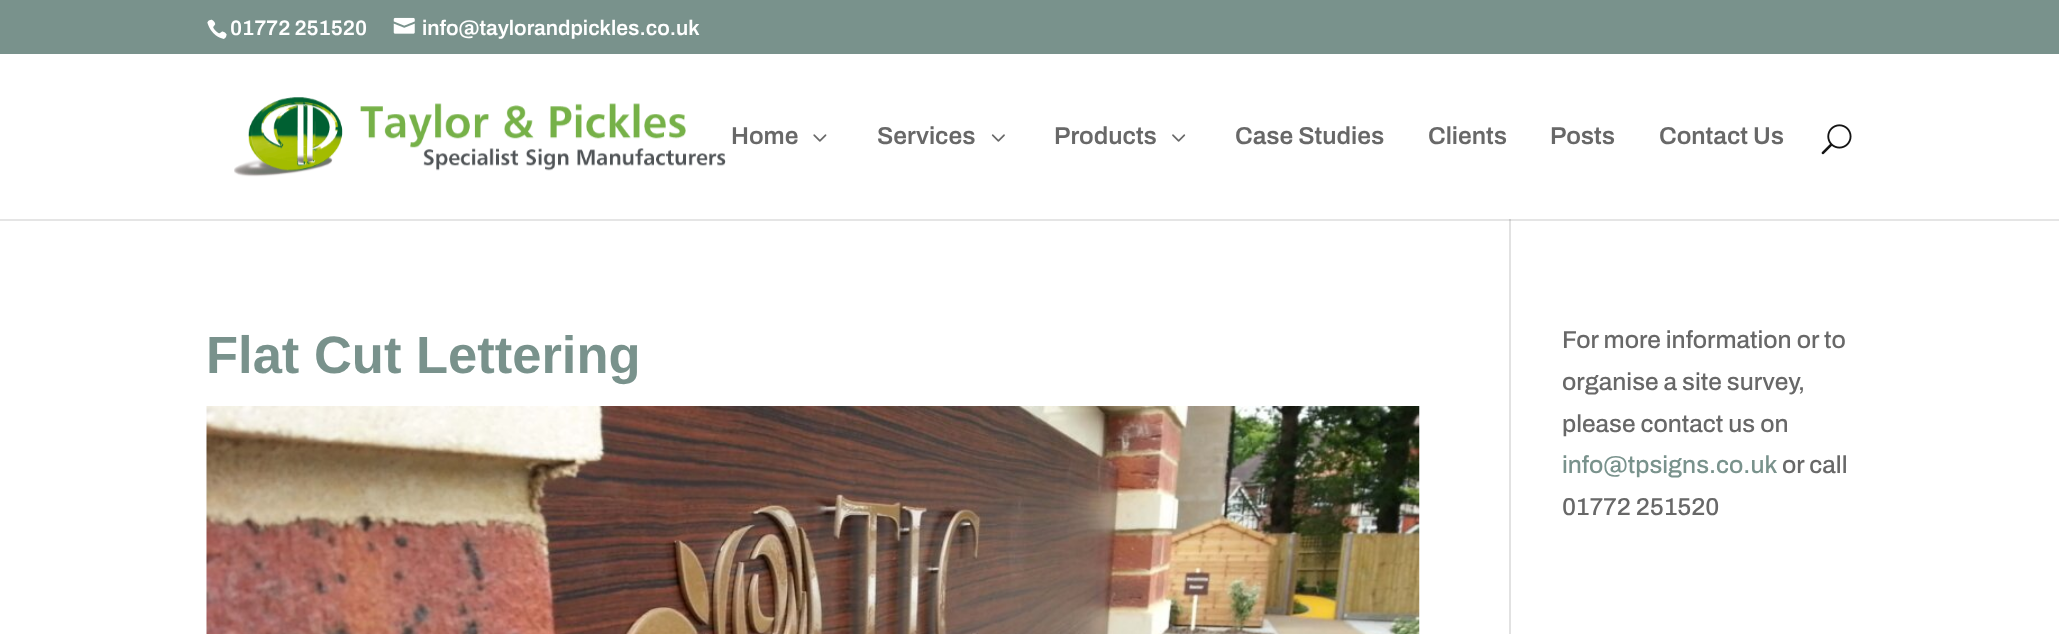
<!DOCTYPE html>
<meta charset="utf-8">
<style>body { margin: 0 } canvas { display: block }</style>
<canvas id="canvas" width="2059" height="634"></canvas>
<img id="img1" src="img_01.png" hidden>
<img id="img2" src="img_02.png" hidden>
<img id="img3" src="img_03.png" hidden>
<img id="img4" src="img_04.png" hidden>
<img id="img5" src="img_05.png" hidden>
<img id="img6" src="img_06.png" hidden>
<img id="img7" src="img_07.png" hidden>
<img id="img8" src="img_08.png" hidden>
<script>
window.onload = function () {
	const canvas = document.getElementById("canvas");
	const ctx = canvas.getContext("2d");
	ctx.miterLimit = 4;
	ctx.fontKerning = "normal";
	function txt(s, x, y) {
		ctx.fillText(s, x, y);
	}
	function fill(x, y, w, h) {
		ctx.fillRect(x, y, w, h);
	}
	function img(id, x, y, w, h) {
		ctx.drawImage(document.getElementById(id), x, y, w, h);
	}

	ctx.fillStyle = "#79928C";
	fill(0, 0, 2059, 634);
	img("img1", 207, 19, 20, 20);
	img("img2", 393, 17, 22, 17);
	ctx.fillStyle = "#FFFFFF";
	fill(0, 54, 2059, 580);
	ctx.fillStyle = "#E2E2E2";
	fill(1509, 219, 2, 415);
	ctx.fillStyle = "rgba(0, 0, 0, 0.1)";
	ctx.beginPath();
	ctx.moveTo(0, 219);
	ctx.lineTo(0, 221);
	ctx.lineTo(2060, 221);
	ctx.lineTo(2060, 56);
	ctx.lineTo(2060, 219);
	ctx.closePath();
	ctx.fill();
	img("img3", 234, 97, 492, 80);
	img("img4", 813, 134, 14, 8);
	img("img5", 991, 134, 14, 8);
	img("img6", 1172, 134, 14, 8);
	img("img7", 1821, 124, 31, 31);
	img("img8", 206, 406, 1214, 228);
	ctx.font = "600 21px Archivo";
	ctx.fillStyle = "#FFFFFF";
	txt("01772 251520", 230, 35);
	txt("info@taylorandpickles.co.uk", 422, 35);
	ctx.font = "600 24.5px Archivo";
	ctx.fillStyle = "#686868";
	txt("Home", 731, 144);
	txt("Services", 877, 144);
	txt("Products", 1054, 144);
	txt("Case Studies", 1235, 144);
	txt("Clients", 1428, 144);
	txt("Posts", 1550, 144);
	txt("Contact Us", 1659, 144);
	ctx.font = "bold 52.5px Liberation Sans";
	ctx.fillStyle = "#79928C";
	txt("Flat Cut Lettering", 206, 373);
	ctx.font = "500 24.5px Archivo";
	ctx.fillStyle = "#686868";
	txt("For more information or to", 1562, 348);
	txt("organise a site survey,", 1562, 390);
	txt("please contact us on", 1562, 432);
	ctx.fillStyle = "#79928C";
	txt("info@tpsigns.co.uk", 1562, 473);
	ctx.fillStyle = "#686868";
	txt("or call", 1782, 473);
	txt("01772 251520", 1562, 515);
};
</script>
